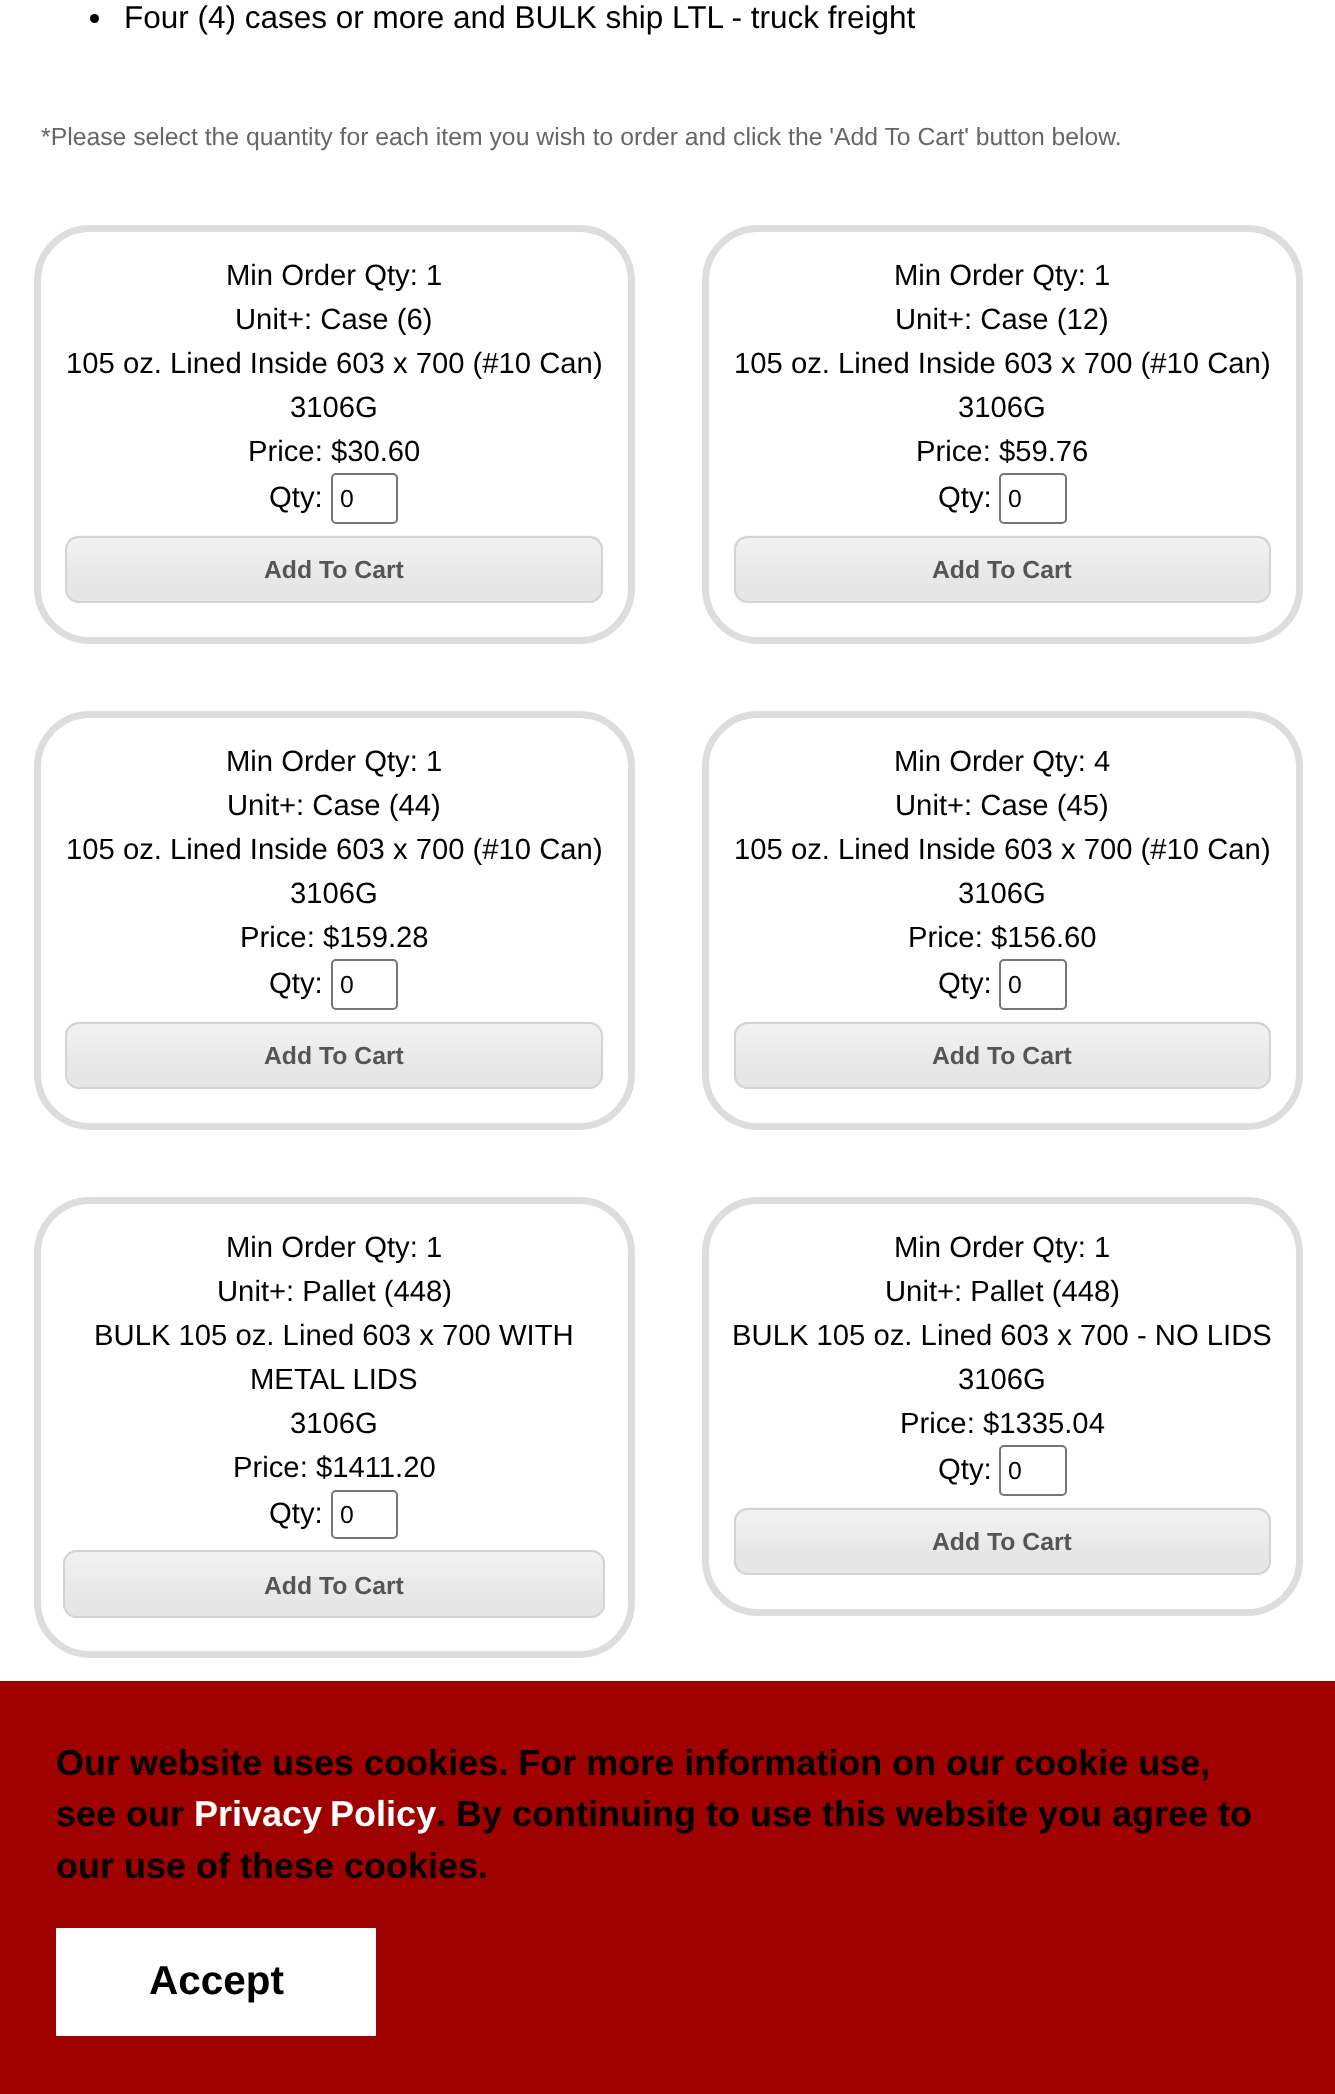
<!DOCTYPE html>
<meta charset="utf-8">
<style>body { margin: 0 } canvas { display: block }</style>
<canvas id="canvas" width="1335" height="2094"></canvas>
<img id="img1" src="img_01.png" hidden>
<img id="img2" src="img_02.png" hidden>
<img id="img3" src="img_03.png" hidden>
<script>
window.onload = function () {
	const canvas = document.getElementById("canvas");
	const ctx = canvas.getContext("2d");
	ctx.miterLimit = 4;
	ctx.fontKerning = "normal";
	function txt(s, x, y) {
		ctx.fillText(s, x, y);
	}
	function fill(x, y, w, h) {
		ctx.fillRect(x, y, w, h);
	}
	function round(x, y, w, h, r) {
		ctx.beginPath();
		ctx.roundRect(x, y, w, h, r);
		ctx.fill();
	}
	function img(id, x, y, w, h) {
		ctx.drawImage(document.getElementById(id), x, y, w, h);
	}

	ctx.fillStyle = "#FFFFFF";
	fill(0, 0, 1335, 2094);
	ctx.fillStyle = "#000000";
	ctx.beginPath();
	ctx.arc(94.5, 18.5, 4.5, 0, Math.PI * 2);
	ctx.fill();
	ctx.beginPath();
	ctx.roundRect(37.5, 228.5, 594, 412, 52.5);
	ctx.strokeStyle = "#DDDDDD";
	ctx.lineWidth = 7;
	ctx.stroke();
	ctx.beginPath();
	ctx.roundRect(332, 474, 65, 49, 4);
	ctx.strokeStyle = "#767676";
	ctx.lineWidth = 2;
	ctx.stroke();
	img("img1", 65, 535, 538, 68);
	ctx.beginPath();
	ctx.roundRect(66, 537, 536, 65, 13);
	ctx.strokeStyle = "#D3D3D3";
	ctx.stroke();
	ctx.beginPath();
	ctx.roundRect(705.5, 228.5, 594, 412, 52.5);
	ctx.strokeStyle = "#DDDDDD";
	ctx.lineWidth = 7;
	ctx.stroke();
	ctx.beginPath();
	ctx.roundRect(1000, 474, 66, 49, 4);
	ctx.strokeStyle = "#767676";
	ctx.lineWidth = 2;
	ctx.stroke();
	img("img2", 733, 535, 538, 68);
	ctx.beginPath();
	ctx.roundRect(735, 537, 535, 65, 13);
	ctx.strokeStyle = "#D3D3D3";
	ctx.stroke();
	ctx.beginPath();
	ctx.roundRect(37.5, 714.5, 594, 412, 52.5);
	ctx.strokeStyle = "#DDDDDD";
	ctx.lineWidth = 7;
	ctx.stroke();
	ctx.beginPath();
	ctx.roundRect(332, 960, 65, 49, 4);
	ctx.strokeStyle = "#767676";
	ctx.lineWidth = 2;
	ctx.stroke();
	img("img1", 65, 1021, 538, 68);
	ctx.beginPath();
	ctx.roundRect(66, 1023, 536, 65, 13);
	ctx.strokeStyle = "#D3D3D3";
	ctx.stroke();
	ctx.beginPath();
	ctx.roundRect(705.5, 714.5, 594, 412, 52.5);
	ctx.strokeStyle = "#DDDDDD";
	ctx.lineWidth = 7;
	ctx.stroke();
	ctx.beginPath();
	ctx.roundRect(1000, 960, 66, 49, 4);
	ctx.strokeStyle = "#767676";
	ctx.lineWidth = 2;
	ctx.stroke();
	img("img2", 733, 1021, 538, 68);
	ctx.beginPath();
	ctx.roundRect(735, 1023, 535, 65, 13);
	ctx.strokeStyle = "#D3D3D3";
	ctx.stroke();
	ctx.beginPath();
	ctx.roundRect(37.5, 1200.5, 594, 454, 52.5);
	ctx.strokeStyle = "#DDDDDD";
	ctx.lineWidth = 7;
	ctx.stroke();
	ctx.beginPath();
	ctx.roundRect(332, 1491, 65, 47, 4);
	ctx.strokeStyle = "#767676";
	ctx.lineWidth = 2;
	ctx.stroke();
	ctx.fillStyle = "#E6E6E6";
	round(63, 1550, 542, 68, 14);
	img("img3", 63, 1550, 542, 64);
	ctx.beginPath();
	ctx.roundRect(64, 1551, 540, 66, 13);
	ctx.strokeStyle = "#D3D3D3";
	ctx.stroke();
	ctx.beginPath();
	ctx.roundRect(705.5, 1200.5, 594, 412, 52.5);
	ctx.strokeStyle = "#DDDDDD";
	ctx.lineWidth = 7;
	ctx.stroke();
	ctx.beginPath();
	ctx.roundRect(1000, 1446, 66, 49, 4);
	ctx.strokeStyle = "#767676";
	ctx.lineWidth = 2;
	ctx.stroke();
	img("img2", 733, 1507, 538, 68);
	ctx.beginPath();
	ctx.roundRect(735, 1509, 535, 65, 13);
	ctx.strokeStyle = "#D3D3D3";
	ctx.stroke();
	ctx.fillStyle = "#9F0000";
	fill(0, 1681, 1335, 413);
	ctx.fillStyle = "#FFFFFF";
	fill(56, 1928, 320, 108);
	ctx.font = "31.5px Liberation Sans";
	ctx.fillStyle = "#000000";
	txt("Four (4) cases or more and BULK ship LTL - truck freight", 124, 28);
	ctx.font = "24.75px Liberation Sans";
	ctx.fillStyle = "#666666";
	txt("*Please select the quantity for each item you wish to order and click the 'Add To Cart' button below.", 41, 145);
	ctx.font = "29.25px Liberation Sans";
	ctx.fillStyle = "#000000";
	txt("Min Order Qty: 1", 226, 285);
	txt("Unit+: Case (6)", 235, 329);
	txt("105 oz. Lined Inside 603 x 700 (#10 Can)", 66, 373);
	txt("3106G", 290, 417);
	txt("Price: $30.60", 248, 461);
	txt("Qty:", 269, 507);
	ctx.font = "24.75px Liberation Sans";
	txt("0", 340, 507);
	ctx.font = "bold 24.75px Liberation Sans";
	ctx.fillStyle = "#555555";
	txt("Add To Cart", 264, 578);
	ctx.font = "29.25px Liberation Sans";
	ctx.fillStyle = "#000000";
	txt("Min Order Qty: 1", 894, 285);
	txt("Unit+: Case (12)", 895, 329);
	txt("105 oz. Lined Inside 603 x 700 (#10 Can)", 734, 373);
	txt("3106G", 958, 417);
	txt("Price: $59.76", 916, 461);
	txt("Qty:", 938, 507);
	ctx.font = "24.75px Liberation Sans";
	txt("0", 1008, 507);
	ctx.font = "bold 24.75px Liberation Sans";
	ctx.fillStyle = "#555555";
	txt("Add To Cart", 932, 578);
	ctx.font = "29.25px Liberation Sans";
	ctx.fillStyle = "#000000";
	txt("Min Order Qty: 1", 226, 771);
	txt("Unit+: Case (44)", 227, 815);
	txt("105 oz. Lined Inside 603 x 700 (#10 Can)", 66, 859);
	txt("3106G", 290, 903);
	txt("Price: $159.28", 240, 947);
	txt("Qty:", 269, 993);
	ctx.font = "24.75px Liberation Sans";
	txt("0", 340, 993);
	ctx.font = "bold 24.75px Liberation Sans";
	ctx.fillStyle = "#555555";
	txt("Add To Cart", 264, 1064);
	ctx.font = "29.25px Liberation Sans";
	ctx.fillStyle = "#000000";
	txt("Min Order Qty: 4", 894, 771);
	txt("Unit+: Case (45)", 895, 815);
	txt("105 oz. Lined Inside 603 x 700 (#10 Can)", 734, 859);
	txt("3106G", 958, 903);
	txt("Price: $156.60", 908, 947);
	txt("Qty:", 938, 993);
	ctx.font = "24.75px Liberation Sans";
	txt("0", 1008, 993);
	ctx.font = "bold 24.75px Liberation Sans";
	ctx.fillStyle = "#555555";
	txt("Add To Cart", 932, 1064);
	ctx.font = "29.25px Liberation Sans";
	ctx.fillStyle = "#000000";
	txt("Min Order Qty: 1", 226, 1257);
	txt("Unit+: Pallet (448)", 217, 1301);
	txt("BULK 105 oz. Lined 603 x 700 WITH", 94, 1345);
	txt("METAL LIDS", 250, 1389);
	txt("3106G", 290, 1433);
	txt("Price: $1411.20", 233, 1477);
	txt("Qty:", 269, 1523);
	ctx.font = "24.75px Liberation Sans";
	txt("0", 340, 1523);
	ctx.font = "bold 24.75px Liberation Sans";
	ctx.fillStyle = "#555555";
	txt("Add To Cart", 264, 1594);
	ctx.font = "29.25px Liberation Sans";
	ctx.fillStyle = "#000000";
	txt("Min Order Qty: 1", 894, 1257);
	txt("Unit+: Pallet (448)", 885, 1301);
	txt("BULK 105 oz. Lined 603 x 700 - NO LIDS", 732, 1345);
	txt("3106G", 958, 1389);
	txt("Price: $1335.04", 900, 1433);
	txt("Qty:", 938, 1479);
	ctx.font = "24.75px Liberation Sans";
	txt("0", 1008, 1479);
	ctx.font = "bold 24.75px Liberation Sans";
	ctx.fillStyle = "#555555";
	txt("Add To Cart", 932, 1550);
	ctx.font = "bold 36px Liberation Sans";
	ctx.fillStyle = "#000000";
	txt("Our website uses cookies. For more information on our cookie use,", 56, 1775);
	txt("see our", 56, 1826);
	ctx.wordSpacing = "-2px";
	ctx.fillStyle = "#FFFFFF";
	txt("Privacy Policy", 194, 1826);
	ctx.wordSpacing = "0px";
	ctx.fillStyle = "#000000";
	txt(". By continuing to use this website you agree to", 436, 1826);
	txt("our use of these cookies.", 56, 1878);
	ctx.font = "bold 40.5px Liberation Sans";
	txt("Accept", 149, 1994);
};
</script>
